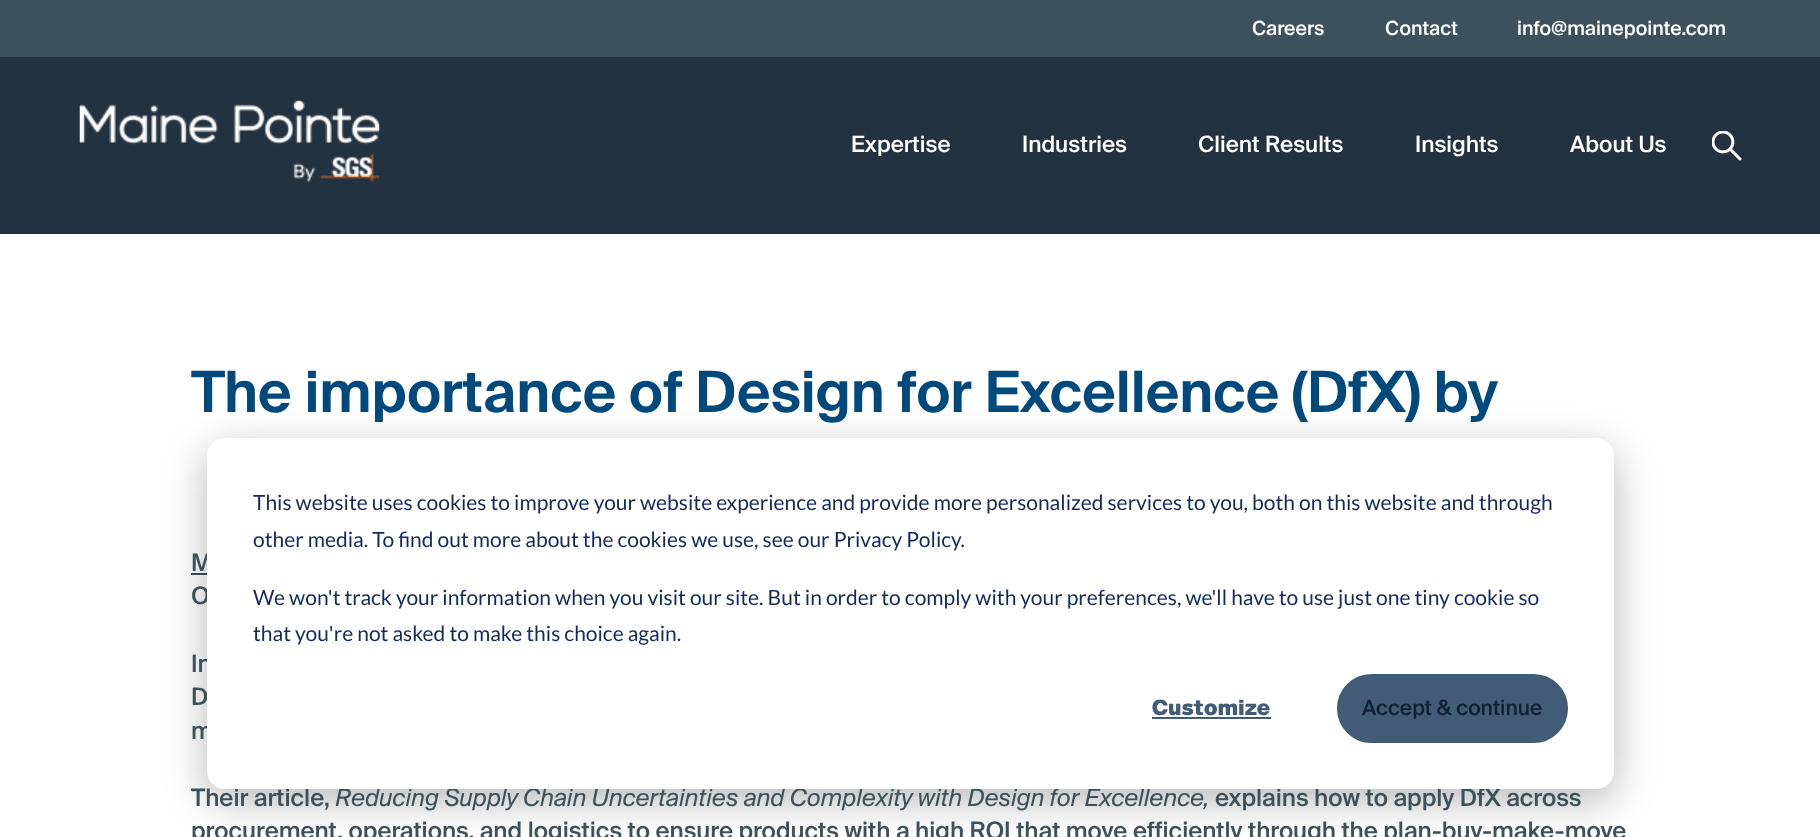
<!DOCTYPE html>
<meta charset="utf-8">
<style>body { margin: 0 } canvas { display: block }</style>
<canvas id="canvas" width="1820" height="837"></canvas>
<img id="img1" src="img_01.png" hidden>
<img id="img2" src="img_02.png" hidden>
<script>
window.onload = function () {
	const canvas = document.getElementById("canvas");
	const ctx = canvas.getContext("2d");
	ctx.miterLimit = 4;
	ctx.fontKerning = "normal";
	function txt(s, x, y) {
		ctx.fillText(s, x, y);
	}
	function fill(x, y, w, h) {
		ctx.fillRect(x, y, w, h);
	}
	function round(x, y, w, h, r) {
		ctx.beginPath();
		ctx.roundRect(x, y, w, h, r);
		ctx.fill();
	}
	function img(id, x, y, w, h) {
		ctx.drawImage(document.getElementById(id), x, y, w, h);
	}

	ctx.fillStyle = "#FFFFFF";
	fill(0, 0, 1820, 837);
	ctx.fillStyle = "#233241";
	fill(0, 57, 1820, 177);
	ctx.fillStyle = "#3C515B";
	fill(0, 0, 1820, 57);
	img("img1", 79, 100, 301, 82);
	img("img2", 1712, 131, 30, 30);
	fill(191, 573, 16, 2);
	ctx.fillStyle = "rgba(0, 0, 0, 0.28)";
	ctx.filter = "blur(21px)";
	ctx.beginPath();
	ctx.roundRect(207, 450, 1407, 351, 18);
	ctx.fill();
	ctx.filter = "none";
	ctx.font = "500 19.5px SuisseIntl";
	ctx.fillStyle = "#FFFFFF";
	txt("Careers", 1252, 35);
	txt("Contact", 1385, 35);
	txt("info@mainepointe.com", 1517, 35);
	ctx.font = "500 22.5px SuisseIntl";
	txt("Expertise", 851, 152);
	txt("Industries", 1022, 152);
	txt("Client Results", 1198, 152);
	txt("Insights", 1415, 152);
	txt("About Us", 1570, 152);
	ctx.font = "600 57px SuisseIntl";
	ctx.fillStyle = "#00497C";
	txt("The importance of Design for Excellence (DfX) by", 191, 412);
	ctx.font = "500 24px SuisseIntl";
	ctx.fillStyle = "#3C515B";
	txt("M", 191, 571);
	txt("O", 191, 604);
	txt("In", 191, 672);
	txt("D", 191, 705);
	txt("m", 191, 739);
	txt("Their article,", 191, 806);
	ctx.font = "italic 24px SuisseIntl";
	txt("Reducing Supply Chain Uncertainties and Complexity with Design for Excellence,", 335, 806);
	ctx.font = "500 24px SuisseIntl";
	txt("explains how to apply DfX across", 1215, 806);
	txt("procurement, operations, and logistics to ensure products with a high ROI that move efficiently through the plan-buy-make-move", 191, 839);
	ctx.fillStyle = "#FFFFFF";
	round(207, 438, 1407, 351, 18);
	ctx.font = "21px Lato";
	ctx.fillStyle = "#15295A";
	txt("This website uses cookies to improve your website experience and provide more personalized services to you, both on this website and through", 253, 510);
	txt("other media. To find out more about the cookies we use, see our Privacy Policy.", 253, 547);
	txt("We won't track your information when you visit our site. But in order to comply with your preferences, we'll have to use just one tiny cookie so", 253, 605);
	txt("that you're not asked to make this choice again.", 253, 641);
	ctx.font = "900 21px SuisseIntl";
	ctx.fillStyle = "#425B76";
	txt("Customize", 1152, 715);
	fill(1152, 717, 119, 2);
	ctx.beginPath();
	ctx.roundRect(1338, 675, 229, 67, 33.5);
	ctx.fill();
	ctx.strokeStyle = "#425B76";
	ctx.lineWidth = 2;
	ctx.stroke();
	ctx.font = "500 21px SuisseIntl";
	ctx.fillStyle = "#112133";
	txt("Accept & continue", 1362, 715);
};
</script>
